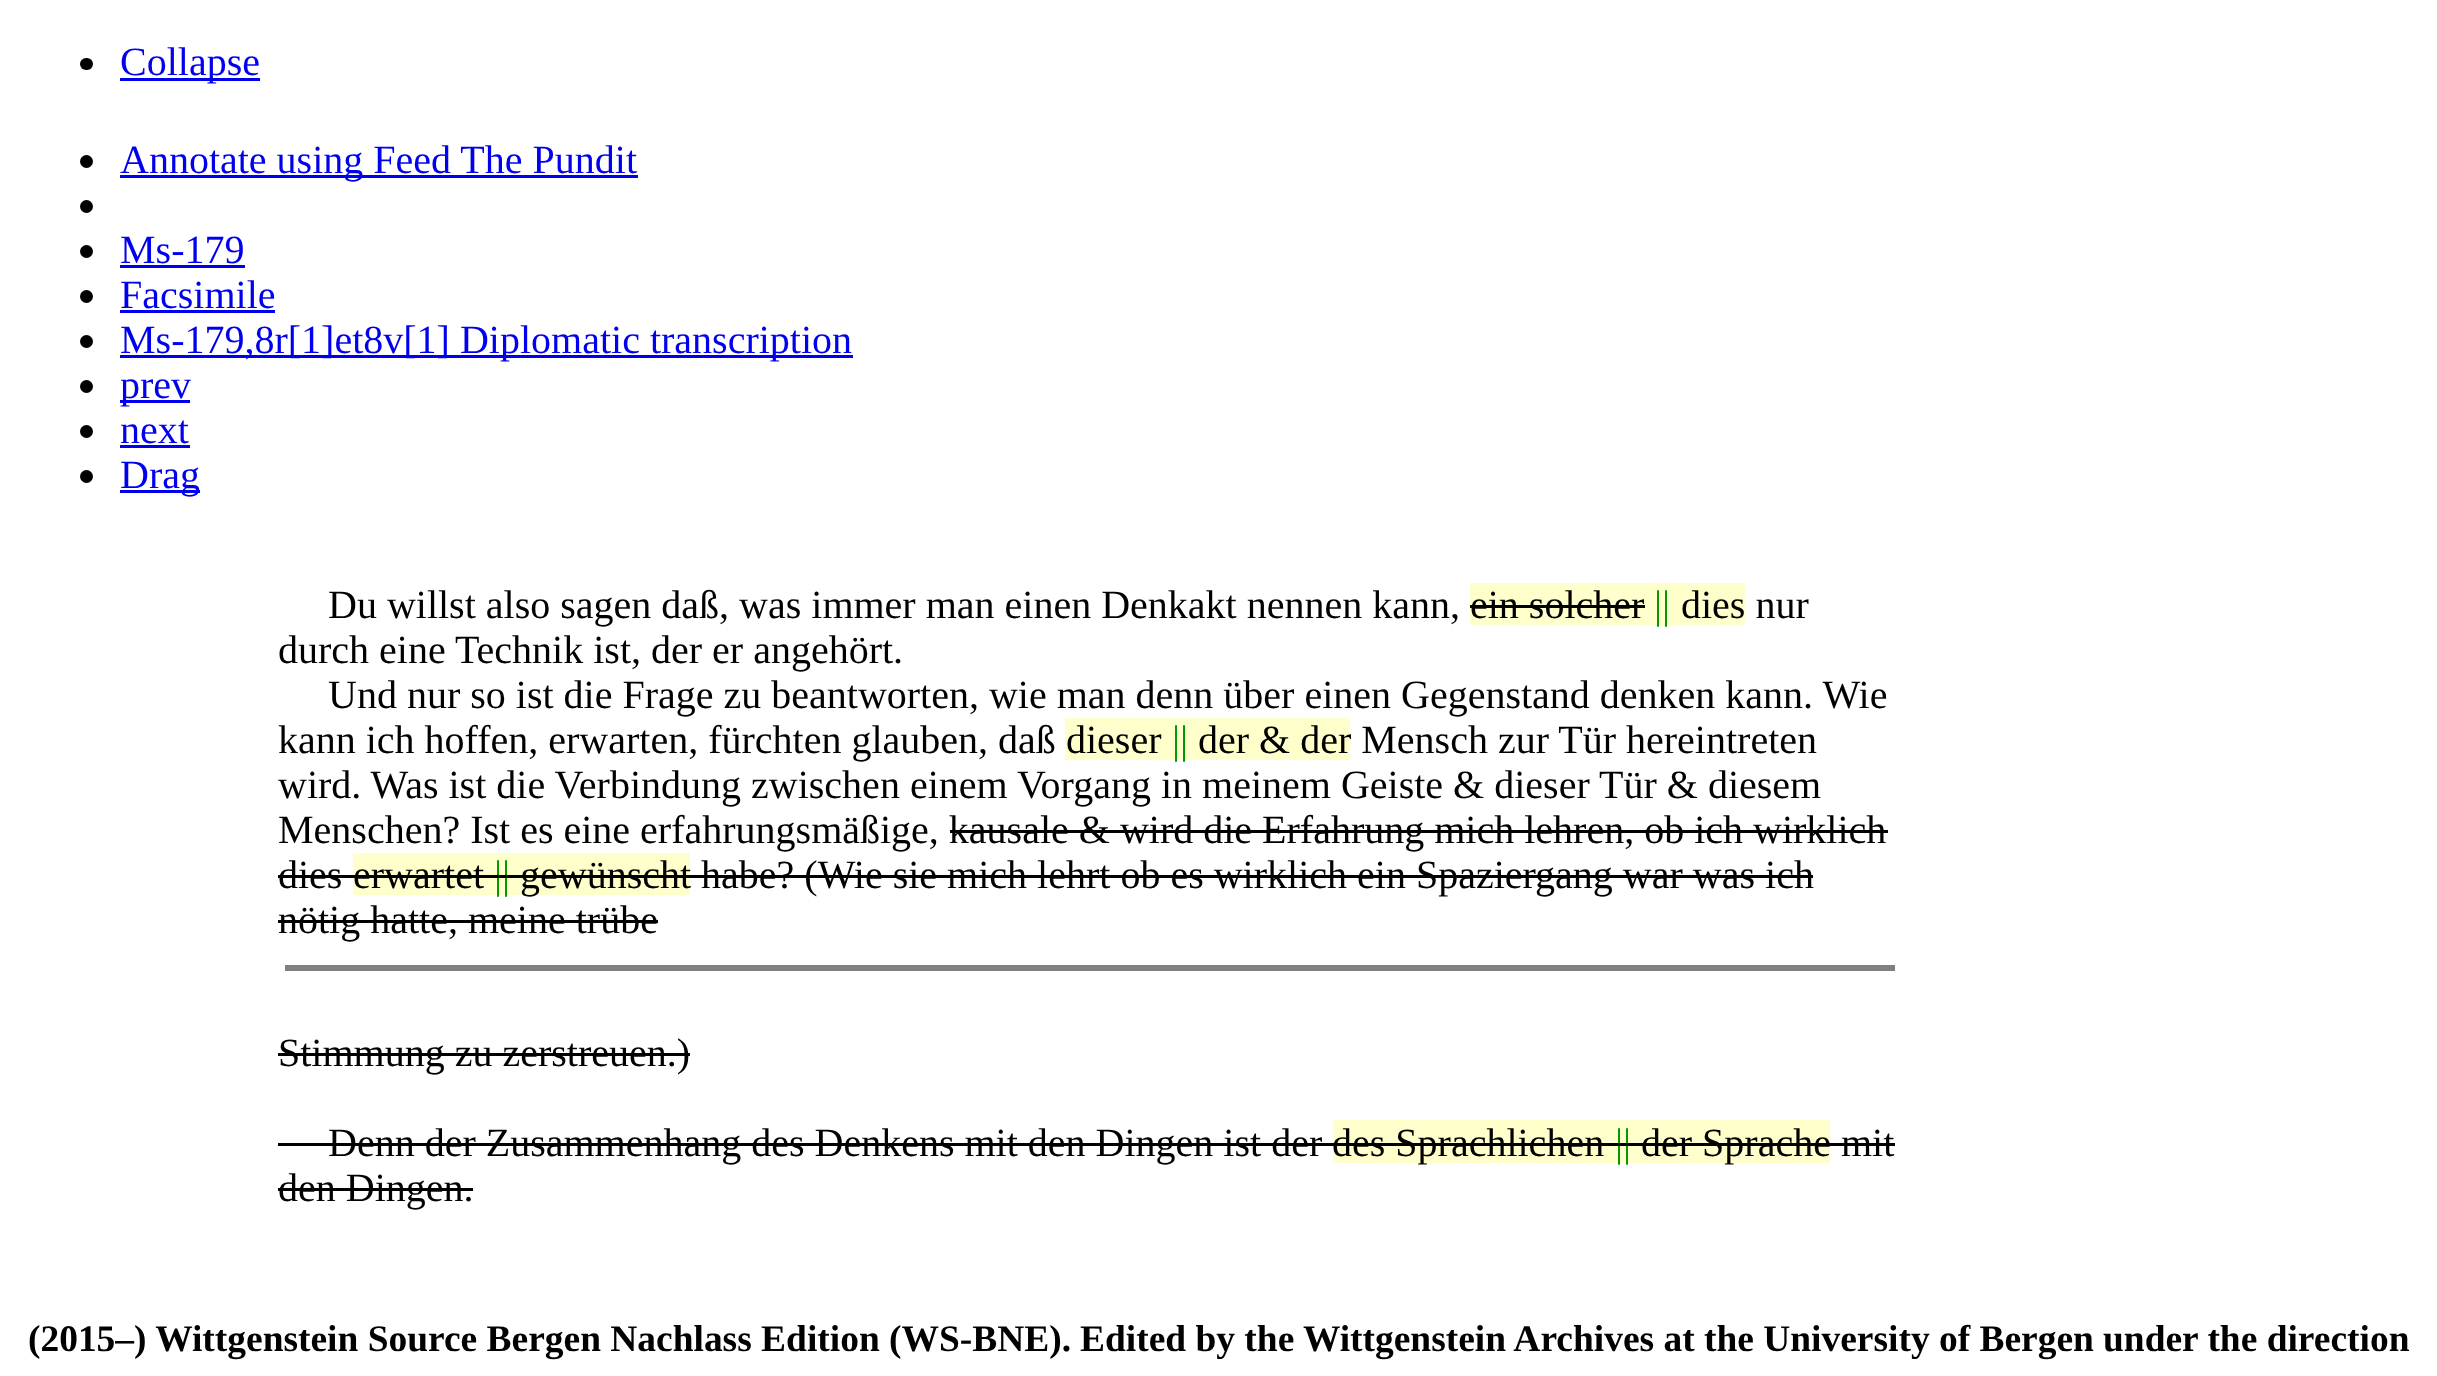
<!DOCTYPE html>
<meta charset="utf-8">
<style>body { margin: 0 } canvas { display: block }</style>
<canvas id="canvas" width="2437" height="1376"></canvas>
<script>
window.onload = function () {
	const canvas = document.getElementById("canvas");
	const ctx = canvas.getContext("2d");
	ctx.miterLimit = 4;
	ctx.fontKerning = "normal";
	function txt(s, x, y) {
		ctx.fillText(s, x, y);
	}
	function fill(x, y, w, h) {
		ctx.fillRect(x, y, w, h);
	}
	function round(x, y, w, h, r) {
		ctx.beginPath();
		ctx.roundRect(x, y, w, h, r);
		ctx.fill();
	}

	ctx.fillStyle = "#FFFFFF";
	fill(0, 0, 2437, 1376);
	ctx.fillStyle = "#000000";
	round(80, 58, 13, 12, 6);
	ctx.fillStyle = "#0000EE";
	fill(120, 78, 140, 3);
	ctx.fillStyle = "#000000";
	ctx.beginPath();
	ctx.arc(86.5, 161.5, 6.5, 0, Math.PI * 2);
	ctx.fill();
	ctx.fillStyle = "#0000EE";
	fill(120, 175, 518, 3);
	ctx.fillStyle = "#000000";
	ctx.beginPath();
	ctx.arc(86.5, 206.5, 6.5, 0, Math.PI * 2);
	ctx.fill();
	ctx.beginPath();
	ctx.arc(86.5, 251.5, 6.5, 0, Math.PI * 2);
	ctx.fill();
	ctx.fillStyle = "#0000EE";
	fill(120, 265, 125, 3);
	ctx.fillStyle = "#000000";
	ctx.beginPath();
	ctx.arc(86.5, 296.5, 6.5, 0, Math.PI * 2);
	ctx.fill();
	ctx.fillStyle = "#0000EE";
	fill(120, 310, 155, 3);
	ctx.fillStyle = "#000000";
	ctx.beginPath();
	ctx.arc(86.5, 341.5, 6.5, 0, Math.PI * 2);
	ctx.fill();
	ctx.fillStyle = "#0000EE";
	fill(120, 355, 733, 3);
	ctx.fillStyle = "#000000";
	ctx.beginPath();
	ctx.arc(86.5, 386.5, 6.5, 0, Math.PI * 2);
	ctx.fill();
	ctx.fillStyle = "#0000EE";
	fill(120, 400, 70, 3);
	ctx.fillStyle = "#000000";
	ctx.beginPath();
	ctx.arc(86.5, 431.5, 6.5, 0, Math.PI * 2);
	ctx.fill();
	ctx.fillStyle = "#0000EE";
	fill(120, 445, 70, 3);
	ctx.fillStyle = "#000000";
	ctx.beginPath();
	ctx.arc(86.5, 476.5, 6.5, 0, Math.PI * 2);
	ctx.fill();
	ctx.fillStyle = "#0000EE";
	fill(120, 490, 80, 3);
	ctx.fillStyle = "#FFFFCC";
	fill(1470, 583, 275, 42);
	ctx.fillStyle = "#000000";
	fill(1470, 605, 175, 3);
	ctx.fillStyle = "#FFFFCC";
	fill(1065, 718, 285, 42);
	ctx.fillStyle = "#000000";
	fill(950, 830, 938, 3);
	fill(278, 875, 75, 3);
	ctx.fillStyle = "#FFFFCC";
	fill(353, 853, 337, 42);
	ctx.fillStyle = "#000000";
	fill(353, 875, 130, 3);
	fill(520, 875, 1293, 3);
	fill(278, 920, 380, 3);
	ctx.fillStyle = "#808080";
	fill(285, 965, 1610, 6);
	ctx.fillStyle = "#000000";
	fill(278, 1053, 412, 3);
	fill(278, 1143, 1055, 3);
	ctx.fillStyle = "#FFFFCC";
	fill(1333, 1120, 497, 43);
	ctx.fillStyle = "#000000";
	fill(1333, 1143, 272, 3);
	fill(1640, 1143, 255, 3);
	fill(278, 1188, 195, 3);
	ctx.font = "40px Liberation Serif";
	ctx.fillStyle = "#0000EE";
	txt("Collapse", 120, 75);
	txt("Annotate using Feed The Pundit", 120, 173);
	txt("Ms-179", 120, 263);
	txt("Facsimile", 120, 308);
	txt("Ms-179,8r[1]et8v[1] Diplomatic transcription", 120, 353);
	txt("prev", 120, 398);
	txt("next", 120, 443);
	txt("Drag", 120, 488);
	ctx.fillStyle = "#000000";
	txt("Du willst also sagen daß, was immer man einen Denkakt nennen kann,", 328, 618);
	txt("ein solcher", 1470, 618);
	ctx.fillStyle = "#009900";
	txt("||", 1654, 618);
	ctx.fillStyle = "#000000";
	txt("dies nur", 1681, 618);
	txt("durch eine Technik ist, der er angehört.", 278, 663);
	txt("Und nur so ist die Frage zu beantworten, wie man denn über einen Gegenstand denken kann. Wie", 328, 708);
	txt("kann ich hoffen, erwarten, fürchten glauben, daß", 278, 753);
	txt("dieser", 1066, 753);
	ctx.fillStyle = "#009900";
	txt("||", 1172, 753);
	ctx.fillStyle = "#000000";
	txt("der & der Mensch zur Tür hereintreten", 1198, 753);
	txt("wird. Was ist die Verbindung zwischen einem Vorgang in meinem Geiste & dieser Tür & diesem", 278, 798);
	txt("Menschen? Ist es eine erfahrungsmäßige, kausale & wird die Erfahrung mich lehren, ob ich wirklich", 278, 843);
	txt("dies", 278, 888);
	txt("erwartet", 353, 888);
	ctx.fillStyle = "#009900";
	txt("||", 494, 888);
	ctx.fillStyle = "#000000";
	fill(483, 875, 37, 3);
	txt("gewünscht habe? (Wie sie mich lehrt ob es wirklich ein Spaziergang war was ich", 520, 888);
	txt("nötig hatte, meine trübe", 278, 933);
	txt("Stimmung zu zerstreuen.)", 278, 1066);
	txt("Denn der Zusammenhang des Denkens mit den Dingen ist der", 328, 1156);
	txt("des Sprachlichen", 1332, 1156);
	ctx.fillStyle = "#009900";
	txt("||", 1615, 1156);
	ctx.fillStyle = "#000000";
	fill(1605, 1143, 35, 3);
	txt("der Sprache mit", 1641, 1156);
	txt("den Dingen.", 278, 1201);
	ctx.font = "bold 37.45px Liberation Serif";
	txt("(2015–) Wittgenstein Source Bergen Nachlass Edition (WS-BNE).", 28, 1351);
	txt("Edited by the Wittgenstein Archives at the University of Bergen", 1080, 1351);
	txt("under the direction", 2103, 1351);
};
</script>
